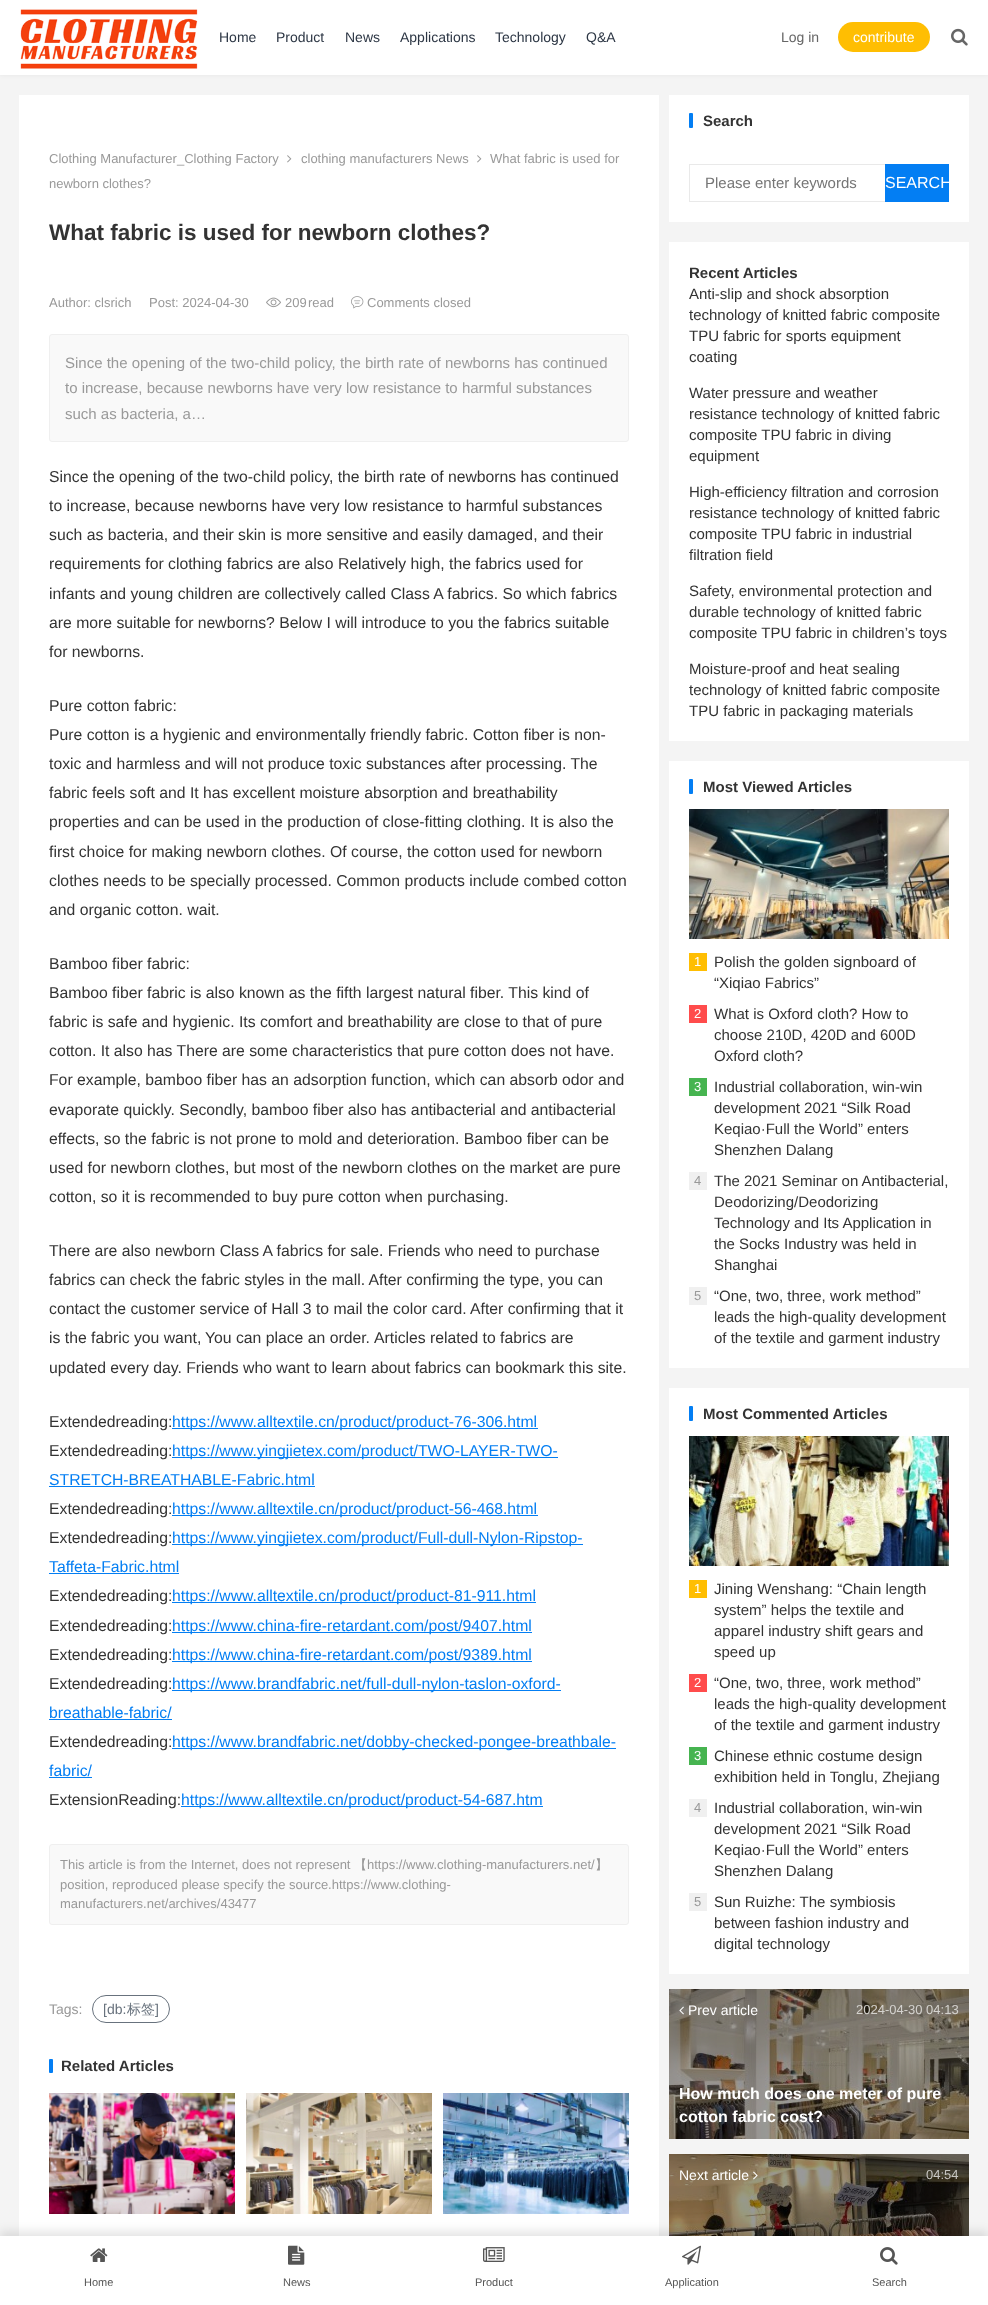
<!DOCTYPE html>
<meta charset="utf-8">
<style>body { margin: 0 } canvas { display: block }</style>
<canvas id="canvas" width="988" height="2305"></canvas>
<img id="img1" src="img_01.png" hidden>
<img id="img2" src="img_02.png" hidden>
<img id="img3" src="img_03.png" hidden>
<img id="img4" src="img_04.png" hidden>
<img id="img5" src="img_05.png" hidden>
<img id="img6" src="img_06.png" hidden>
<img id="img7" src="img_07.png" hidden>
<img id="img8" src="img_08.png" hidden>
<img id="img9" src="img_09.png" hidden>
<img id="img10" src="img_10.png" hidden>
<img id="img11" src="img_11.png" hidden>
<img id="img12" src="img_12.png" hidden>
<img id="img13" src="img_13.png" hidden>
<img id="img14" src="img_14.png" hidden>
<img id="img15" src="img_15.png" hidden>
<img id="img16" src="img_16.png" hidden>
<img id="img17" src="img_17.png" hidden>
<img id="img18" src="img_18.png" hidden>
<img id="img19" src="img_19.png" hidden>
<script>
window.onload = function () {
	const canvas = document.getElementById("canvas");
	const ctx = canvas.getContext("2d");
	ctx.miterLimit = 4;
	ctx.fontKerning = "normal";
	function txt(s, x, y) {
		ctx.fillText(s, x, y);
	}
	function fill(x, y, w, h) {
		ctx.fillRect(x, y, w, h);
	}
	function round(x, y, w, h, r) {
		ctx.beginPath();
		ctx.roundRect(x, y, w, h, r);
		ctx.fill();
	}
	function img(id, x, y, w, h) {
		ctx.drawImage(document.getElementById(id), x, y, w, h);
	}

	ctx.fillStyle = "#F4F4F4";
	fill(0, 0, 988, 2305);
	ctx.fillStyle = "rgba(0, 0, 0, 0.06)";
	ctx.filter = "blur(2px)";
	ctx.beginPath();
	ctx.rect(0, 0, 988, 75);
	ctx.fill();
	ctx.filter = "none";
	ctx.fillStyle = "#FFFFFF";
	fill(0, 0, 988, 75);
	img("img1", 20, 9, 178, 60);
	ctx.fillStyle = "#FFBE02";
	round(838, 22, 92, 30, 15);
	img("img2", 951, 28, 17, 18);
	ctx.fillStyle = "#FFFFFF";
	fill(19, 95, 640, 2141);
	img("img3", 477, 155, 5, 8);
	img("img3", 287, 155, 5, 8);
	img("img4", 266, 297, 15, 11);
	img("img5", 351, 296, 13, 13);
	ctx.fillStyle = "#F9F9F9";
	ctx.beginPath();
	ctx.roundRect(49.5, 334.5, 579, 107, 2.5);
	ctx.fill();
	ctx.strokeStyle = "#EFEFEF";
	ctx.stroke();
	ctx.fillStyle = "#037EF3";
	fill(172, 1428, 366, 1);
	fill(172, 1457, 386, 1);
	fill(49, 1486, 266, 1);
	fill(172, 1515, 366, 1);
	fill(172, 1544, 411, 1);
	fill(49, 1573, 130, 1);
	fill(172, 1602, 364, 1);
	fill(172, 1632, 360, 1);
	fill(172, 1661, 360, 1);
	fill(172, 1690, 389, 1);
	fill(49, 1719, 123, 1);
	fill(172, 1748, 444, 1);
	fill(49, 1777, 43, 1);
	fill(181, 1806, 362, 1);
	ctx.fillStyle = "#F9F9F9";
	ctx.beginPath();
	ctx.roundRect(49.5, 1844.5, 579, 80, 2.5);
	ctx.fill();
	ctx.stroke();
	ctx.beginPath();
	ctx.roundRect(92.5, 1995.5, 77, 27, 13.5);
	ctx.strokeStyle = "#68727D";
	ctx.stroke();
	ctx.fillStyle = "#037EF3";
	round(49, 2059, 4, 14, 1);
	img("img6", 49, 2093, 186, 121);
	img("img7", 246, 2093, 186, 121);
	img("img8", 443, 2093, 186, 121);
	ctx.fillStyle = "#FFFFFF";
	fill(669, 95, 300, 127);
	ctx.fillStyle = "#037EF3";
	round(689, 113, 4, 15, 1);
	ctx.strokeStyle = "#E9E9E9";
	ctx.strokeRect(689.5, 164.5, 259, 37);
	fill(885, 164, 64, 38);
	ctx.fillStyle = "#FFFFFF";
	fill(669, 242, 300, 499);
	fill(669, 761, 300, 607);
	ctx.fillStyle = "#037EF3";
	round(689, 779, 4, 15, 1);
	img("img9", 689, 809, 260, 130);
	ctx.fillStyle = "#FFBE02";
	fill(689, 953, 18, 18);
	ctx.fillStyle = "#FF4C4C";
	fill(689, 1005, 18, 18);
	ctx.fillStyle = "#46B450";
	fill(689, 1078, 18, 18);
	ctx.fillStyle = "#F0F0F0";
	fill(689, 1172, 18, 18);
	fill(689, 1287, 18, 18);
	ctx.fillStyle = "#FFFFFF";
	fill(669, 1388, 300, 586);
	ctx.fillStyle = "#037EF3";
	round(689, 1406, 4, 15, 1);
	img("img10", 689, 1436, 260, 130);
	ctx.fillStyle = "#FFBE02";
	fill(689, 1580, 18, 18);
	ctx.fillStyle = "#FF4C4C";
	fill(689, 1674, 18, 18);
	ctx.fillStyle = "#46B450";
	fill(689, 1747, 18, 18);
	ctx.fillStyle = "#F0F0F0";
	fill(689, 1799, 18, 18);
	fill(689, 1893, 18, 18);
	img("img11", 669, 1989, 300, 150);
	img("img12", 679, 2006, 5, 9);
	img("img13", 669, 2154, 300, 82);
	img("img14", 753, 2171, 5, 9);
	ctx.fillStyle = "rgba(0, 0, 0, 0.1)";
	ctx.filter = "blur(5px)";
	ctx.beginPath();
	ctx.rect(0, 2231, 988, 69);
	ctx.fill();
	ctx.filter = "none";
	ctx.fillStyle = "#FFFFFF";
	fill(0, 2236, 988, 69);
	img("img15", 90, 2248, 18, 14);
	img("img16", 288, 2245, 17, 20);
	img("img17", 483, 2247, 22, 15);
	img("img18", 682, 2245, 19, 20);
	img("img19", 880, 2247, 18, 18);
	ctx.font = "14px Liberation Sans";
	ctx.fillStyle = "#2C3644";
	txt("Home", 219, 42);
	txt("Product", 276, 42);
	txt("News", 345, 42);
	txt("Applications", 400, 42);
	txt("Technology", 495, 42);
	txt("Q&A", 586, 42);
	ctx.fillStyle = "#666666";
	txt("Log in", 781, 42);
	ctx.fillStyle = "#FFFFFF";
	txt("contribute", 853, 42);
	ctx.font = "13px Liberation Sans";
	ctx.fillStyle = "#999999";
	txt("Clothing Manufacturer_Clothing Factory", 49, 163);
	txt("What fabric is used for", 490, 163);
	txt("newborn clothes?", 49, 188);
	txt("clothing manufacturers News", 301, 163);
	ctx.font = "bold 22.5px Liberation Sans";
	ctx.fillStyle = "#333333";
	txt("What fabric is used for newborn clothes?", 49, 240);
	ctx.font = "13px Liberation Sans";
	ctx.fillStyle = "#999999";
	txt("Author: clsrich", 49, 307);
	txt("Post: 2024-04-30", 149, 307);
	txt("209", 285, 307);
	txt("read", 308, 307);
	txt("Comments closed", 367, 307);
	ctx.font = "15px Liberation Sans";
	txt("Since the opening of the two-child policy, the birth rate of newborns has continued", 65, 368);
	txt("to increase, because newborns have very low resistance to harmful substances", 65, 393);
	txt("such as bacteria, a…", 65, 419);
	ctx.font = "15.75px Liberation Sans";
	ctx.fillStyle = "#333333";
	txt("Since the opening of the two-child policy, the birth rate of newborns has continued", 49, 482);
	txt("to increase, because newborns have very low resistance to harmful substances", 49, 511);
	txt("such as bacteria, and their skin is more sensitive and easily damaged, and their", 49, 540);
	txt("requirements for clothing fabrics are also Relatively high, the fabrics used for", 49, 569);
	txt("infants and young children are collectively called Class A fabrics. So which fabrics", 49, 599);
	txt("are more suitable for newborns? Below I will introduce to you the fabrics suitable", 49, 628);
	txt("for newborns.", 49, 657);
	txt("Pure cotton fabric:", 49, 711);
	txt("Pure cotton is a hygienic and environmentally friendly fabric. Cotton fiber is non-", 49, 740);
	txt("toxic and harmless and will not produce toxic substances after processing. The", 49, 769);
	txt("fabric feels soft and It has excellent moisture absorption and breathability", 49, 798);
	txt("properties and can be used in the production of close-fitting clothing. It is also the", 49, 827);
	txt("first choice for making newborn clothes. Of course, the cotton used for newborn", 49, 857);
	txt("clothes needs to be specially processed. Common products include combed cotton", 49, 886);
	txt("and organic cotton. wait.", 49, 915);
	txt("Bamboo fiber fabric:", 49, 969);
	txt("Bamboo fiber fabric is also known as the fifth largest natural fiber. This kind of", 49, 998);
	txt("fabric is safe and hygienic. Its comfort and breathability are close to that of pure", 49, 1027);
	txt("cotton. It also has There are some characteristics that pure cotton does not have.", 49, 1056);
	txt("For example, bamboo fiber has an adsorption function, which can absorb odor and", 49, 1085);
	txt("evaporate quickly. Secondly, bamboo fiber also has antibacterial and antibacterial", 49, 1115);
	txt("effects, so the fabric is not prone to mold and deterioration. Bamboo fiber can be", 49, 1144);
	txt("used for newborn clothes, but most of the newborn clothes on the market are pure", 49, 1173);
	txt("cotton, so it is recommended to buy pure cotton when purchasing.", 49, 1202);
	txt("There are also newborn Class A fabrics for sale. Friends who need to purchase", 49, 1256);
	txt("fabrics can check the fabric styles in the mall. After confirming the type, you can", 49, 1285);
	txt("contact the customer service of Hall 3 to mail the color card. After confirming that it", 49, 1314);
	txt("is the fabric you want,", 49, 1343);
	txt("You can place an order.", 205, 1343);
	txt("Articles related to fabrics are", 374, 1343);
	txt("updated every day. Friends who want to learn about fabrics can bookmark this site.", 49, 1373);
	txt("Extendedreading:", 49, 1427);
	ctx.fillStyle = "#037EF3";
	txt("https://www.alltextile.cn/product/product-76-306.html", 172, 1427);
	ctx.fillStyle = "#333333";
	txt("Extendedreading:", 49, 1456);
	ctx.fillStyle = "#037EF3";
	txt("https://www.yingjietex.com/product/TWO-LAYER-TWO-", 172, 1456);
	txt("STRETCH-BREATHABLE-Fabric.html", 49, 1485);
	ctx.fillStyle = "#333333";
	txt("Extendedreading:", 49, 1514);
	ctx.fillStyle = "#037EF3";
	txt("https://www.alltextile.cn/product/product-56-468.html", 172, 1514);
	ctx.fillStyle = "#333333";
	txt("Extendedreading:", 49, 1543);
	ctx.fillStyle = "#037EF3";
	txt("https://www.yingjietex.com/product/Full-dull-Nylon-Ripstop-", 172, 1543);
	txt("Taffeta-Fabric.html", 49, 1572);
	ctx.fillStyle = "#333333";
	txt("Extendedreading:", 49, 1601);
	ctx.fillStyle = "#037EF3";
	txt("https://www.alltextile.cn/product/product-81-911.html", 172, 1601);
	ctx.fillStyle = "#333333";
	txt("Extendedreading:", 49, 1631);
	ctx.fillStyle = "#037EF3";
	txt("https://www.china-fire-retardant.com/post/9407.html", 172, 1631);
	ctx.fillStyle = "#333333";
	txt("Extendedreading:", 49, 1660);
	ctx.fillStyle = "#037EF3";
	txt("https://www.china-fire-retardant.com/post/9389.html", 172, 1660);
	ctx.fillStyle = "#333333";
	txt("Extendedreading:", 49, 1689);
	ctx.fillStyle = "#037EF3";
	txt("https://www.brandfabric.net/full-dull-nylon-taslon-oxford-", 172, 1689);
	txt("breathable-fabric/", 49, 1718);
	ctx.fillStyle = "#333333";
	txt("Extendedreading:", 49, 1747);
	ctx.fillStyle = "#037EF3";
	txt("https://www.brandfabric.net/dobby-checked-pongee-breathbale-", 172, 1747);
	txt("fabric/", 49, 1776);
	ctx.fillStyle = "#333333";
	txt("ExtensionReading:", 49, 1805);
	ctx.fillStyle = "#037EF3";
	txt("https://www.alltextile.cn/product/product-54-687.htm", 181, 1805);
	ctx.font = "13px Liberation Sans";
	ctx.fillStyle = "#999999";
	txt("This article is from the Internet, does not represent", 60, 1869);
	ctx.font = "500 13px WenQuanYi Zen Hei";
	txt("【", 354, 1869);
	ctx.font = "13px Liberation Sans";
	txt("https://www.clothing-manufacturers.net/", 367, 1869);
	ctx.font = "500 13px WenQuanYi Zen Hei";
	txt("】", 595, 1869);
	ctx.font = "13px Liberation Sans";
	txt("position, reproduced please specify the source.https://www.clothing-", 60, 1889);
	txt("manufacturers.net/archives/43477", 60, 1908);
	ctx.font = "14px Liberation Sans";
	txt("Tags:", 49, 2014);
	ctx.fillStyle = "#68727D";
	txt("[db:", 103, 2014);
	ctx.font = "500 14px WenQuanYi Zen Hei";
	txt("标签", 127, 2014);
	ctx.font = "14px Liberation Sans";
	txt("]", 155, 2014);
	ctx.font = "bold 15px Liberation Sans";
	ctx.fillStyle = "#333333";
	txt("Related Articles", 61, 2071);
	txt("Search", 703, 126);
	ctx.font = "15px Liberation Sans";
	ctx.fillStyle = "#757575";
	txt("Please enter keywords", 705, 188);
	ctx.font = "16px Liberation Sans";
	ctx.fillStyle = "#FFFFFF";
	txt("SEARCH", 885, 188);
	ctx.font = "bold 15px Liberation Sans";
	ctx.fillStyle = "#333333";
	txt("Recent Articles", 689, 278);
	ctx.font = "15px Liberation Sans";
	txt("Anti-slip and shock absorption", 689, 299);
	txt("technology of knitted fabric composite", 689, 320);
	txt("TPU fabric for sports equipment", 689, 341);
	txt("coating", 689, 362);
	txt("Water pressure and weather", 689, 398);
	txt("resistance technology of knitted fabric", 689, 419);
	txt("composite TPU fabric in diving", 689, 440);
	txt("equipment", 689, 461);
	txt("High-efficiency filtration and corrosion", 689, 497);
	txt("resistance technology of knitted fabric", 689, 518);
	txt("composite TPU fabric in industrial", 689, 539);
	txt("filtration field", 689, 560);
	txt("Safety, environmental protection and", 689, 596);
	txt("durable technology of knitted fabric", 689, 617);
	txt("composite TPU fabric in children’s toys", 689, 638);
	txt("Moisture-proof and heat sealing", 689, 674);
	txt("technology of knitted fabric composite", 689, 695);
	txt("TPU fabric in packaging materials", 689, 716);
	ctx.font = "bold 15px Liberation Sans";
	txt("Most Viewed Articles", 703, 792);
	ctx.font = "13px Liberation Sans";
	ctx.fillStyle = "#FFFFFF";
	txt("1", 694, 966);
	ctx.font = "15px Liberation Sans";
	ctx.fillStyle = "#333333";
	txt("Polish the golden signboard of", 714, 967);
	txt("“Xiqiao Fabrics”", 714, 988);
	ctx.font = "13px Liberation Sans";
	ctx.fillStyle = "#FFFFFF";
	txt("2", 694, 1018);
	ctx.font = "15px Liberation Sans";
	ctx.fillStyle = "#333333";
	txt("What is Oxford cloth? How to", 714, 1019);
	txt("choose 210D, 420D and 600D", 714, 1040);
	txt("Oxford cloth?", 714, 1061);
	ctx.font = "13px Liberation Sans";
	ctx.fillStyle = "#FFFFFF";
	txt("3", 694, 1091);
	ctx.font = "15px Liberation Sans";
	ctx.fillStyle = "#333333";
	txt("Industrial collaboration, win-win", 714, 1092);
	txt("development 2021 “Silk Road", 714, 1113);
	txt("Keqiao·Full the World” enters", 714, 1134);
	txt("Shenzhen Dalang", 714, 1155);
	ctx.font = "13px Liberation Sans";
	ctx.fillStyle = "#999999";
	txt("4", 694, 1185);
	ctx.font = "15px Liberation Sans";
	ctx.fillStyle = "#333333";
	txt("The 2021 Seminar on Antibacterial,", 714, 1186);
	txt("Deodorizing/Deodorizing", 714, 1207);
	txt("Technology and Its Application in", 714, 1228);
	txt("the Socks Industry was held in", 714, 1249);
	txt("Shanghai", 714, 1270);
	ctx.font = "13px Liberation Sans";
	ctx.fillStyle = "#999999";
	txt("5", 694, 1300);
	ctx.font = "15px Liberation Sans";
	ctx.fillStyle = "#333333";
	txt("“One, two, three, work method”", 714, 1301);
	txt("leads the high-quality development", 714, 1322);
	txt("of the textile and garment industry", 714, 1343);
	ctx.font = "bold 15px Liberation Sans";
	txt("Most Commented Articles", 703, 1419);
	ctx.font = "13px Liberation Sans";
	ctx.fillStyle = "#FFFFFF";
	txt("1", 694, 1593);
	ctx.font = "15px Liberation Sans";
	ctx.fillStyle = "#333333";
	txt("Jining Wenshang: “Chain length", 714, 1594);
	txt("system” helps the textile and", 714, 1615);
	txt("apparel industry shift gears and", 714, 1636);
	txt("speed up", 714, 1657);
	ctx.font = "13px Liberation Sans";
	ctx.fillStyle = "#FFFFFF";
	txt("2", 694, 1687);
	ctx.font = "15px Liberation Sans";
	ctx.fillStyle = "#333333";
	txt("“One, two, three, work method”", 714, 1688);
	txt("leads the high-quality development", 714, 1709);
	txt("of the textile and garment industry", 714, 1730);
	ctx.font = "13px Liberation Sans";
	ctx.fillStyle = "#FFFFFF";
	txt("3", 694, 1760);
	ctx.font = "15px Liberation Sans";
	ctx.fillStyle = "#333333";
	txt("Chinese ethnic costume design", 714, 1761);
	txt("exhibition held in Tonglu, Zhejiang", 714, 1782);
	ctx.font = "13px Liberation Sans";
	ctx.fillStyle = "#999999";
	txt("4", 694, 1812);
	ctx.font = "15px Liberation Sans";
	ctx.fillStyle = "#333333";
	txt("Industrial collaboration, win-win", 714, 1813);
	txt("development 2021 “Silk Road", 714, 1834);
	txt("Keqiao·Full the World” enters", 714, 1855);
	txt("Shenzhen Dalang", 714, 1876);
	ctx.font = "13px Liberation Sans";
	ctx.fillStyle = "#999999";
	txt("5", 694, 1906);
	ctx.font = "15px Liberation Sans";
	ctx.fillStyle = "#333333";
	txt("Sun Ruizhe: The symbiosis", 714, 1907);
	txt("between fashion industry and", 714, 1928);
	txt("digital technology", 714, 1949);
	ctx.font = "14px Liberation Sans";
	ctx.fillStyle = "#FFFFFF";
	txt("Prev article", 688, 2015);
	ctx.font = "13px Liberation Sans";
	ctx.fillStyle = "#D4D2CE";
	txt("2024-04-30 04:13", 856, 2014);
	ctx.font = "bold 16px Liberation Sans";
	ctx.fillStyle = "#FFFFFF";
	txt("How much does one meter of pure", 679, 2099);
	txt("cotton fabric cost?", 679, 2122);
	ctx.font = "14px Liberation Sans";
	txt("Next article", 679, 2180);
	ctx.font = "13px Liberation Sans";
	ctx.fillStyle = "#C6C4C0";
	txt("04:54", 926, 2179);
	ctx.font = "11px Liberation Sans";
	ctx.fillStyle = "#555555";
	txt("Home", 84, 2286);
	txt("News", 283, 2286);
	txt("Product", 475, 2286);
	txt("Application", 665, 2286);
	txt("Search", 872, 2286);
};
</script>
